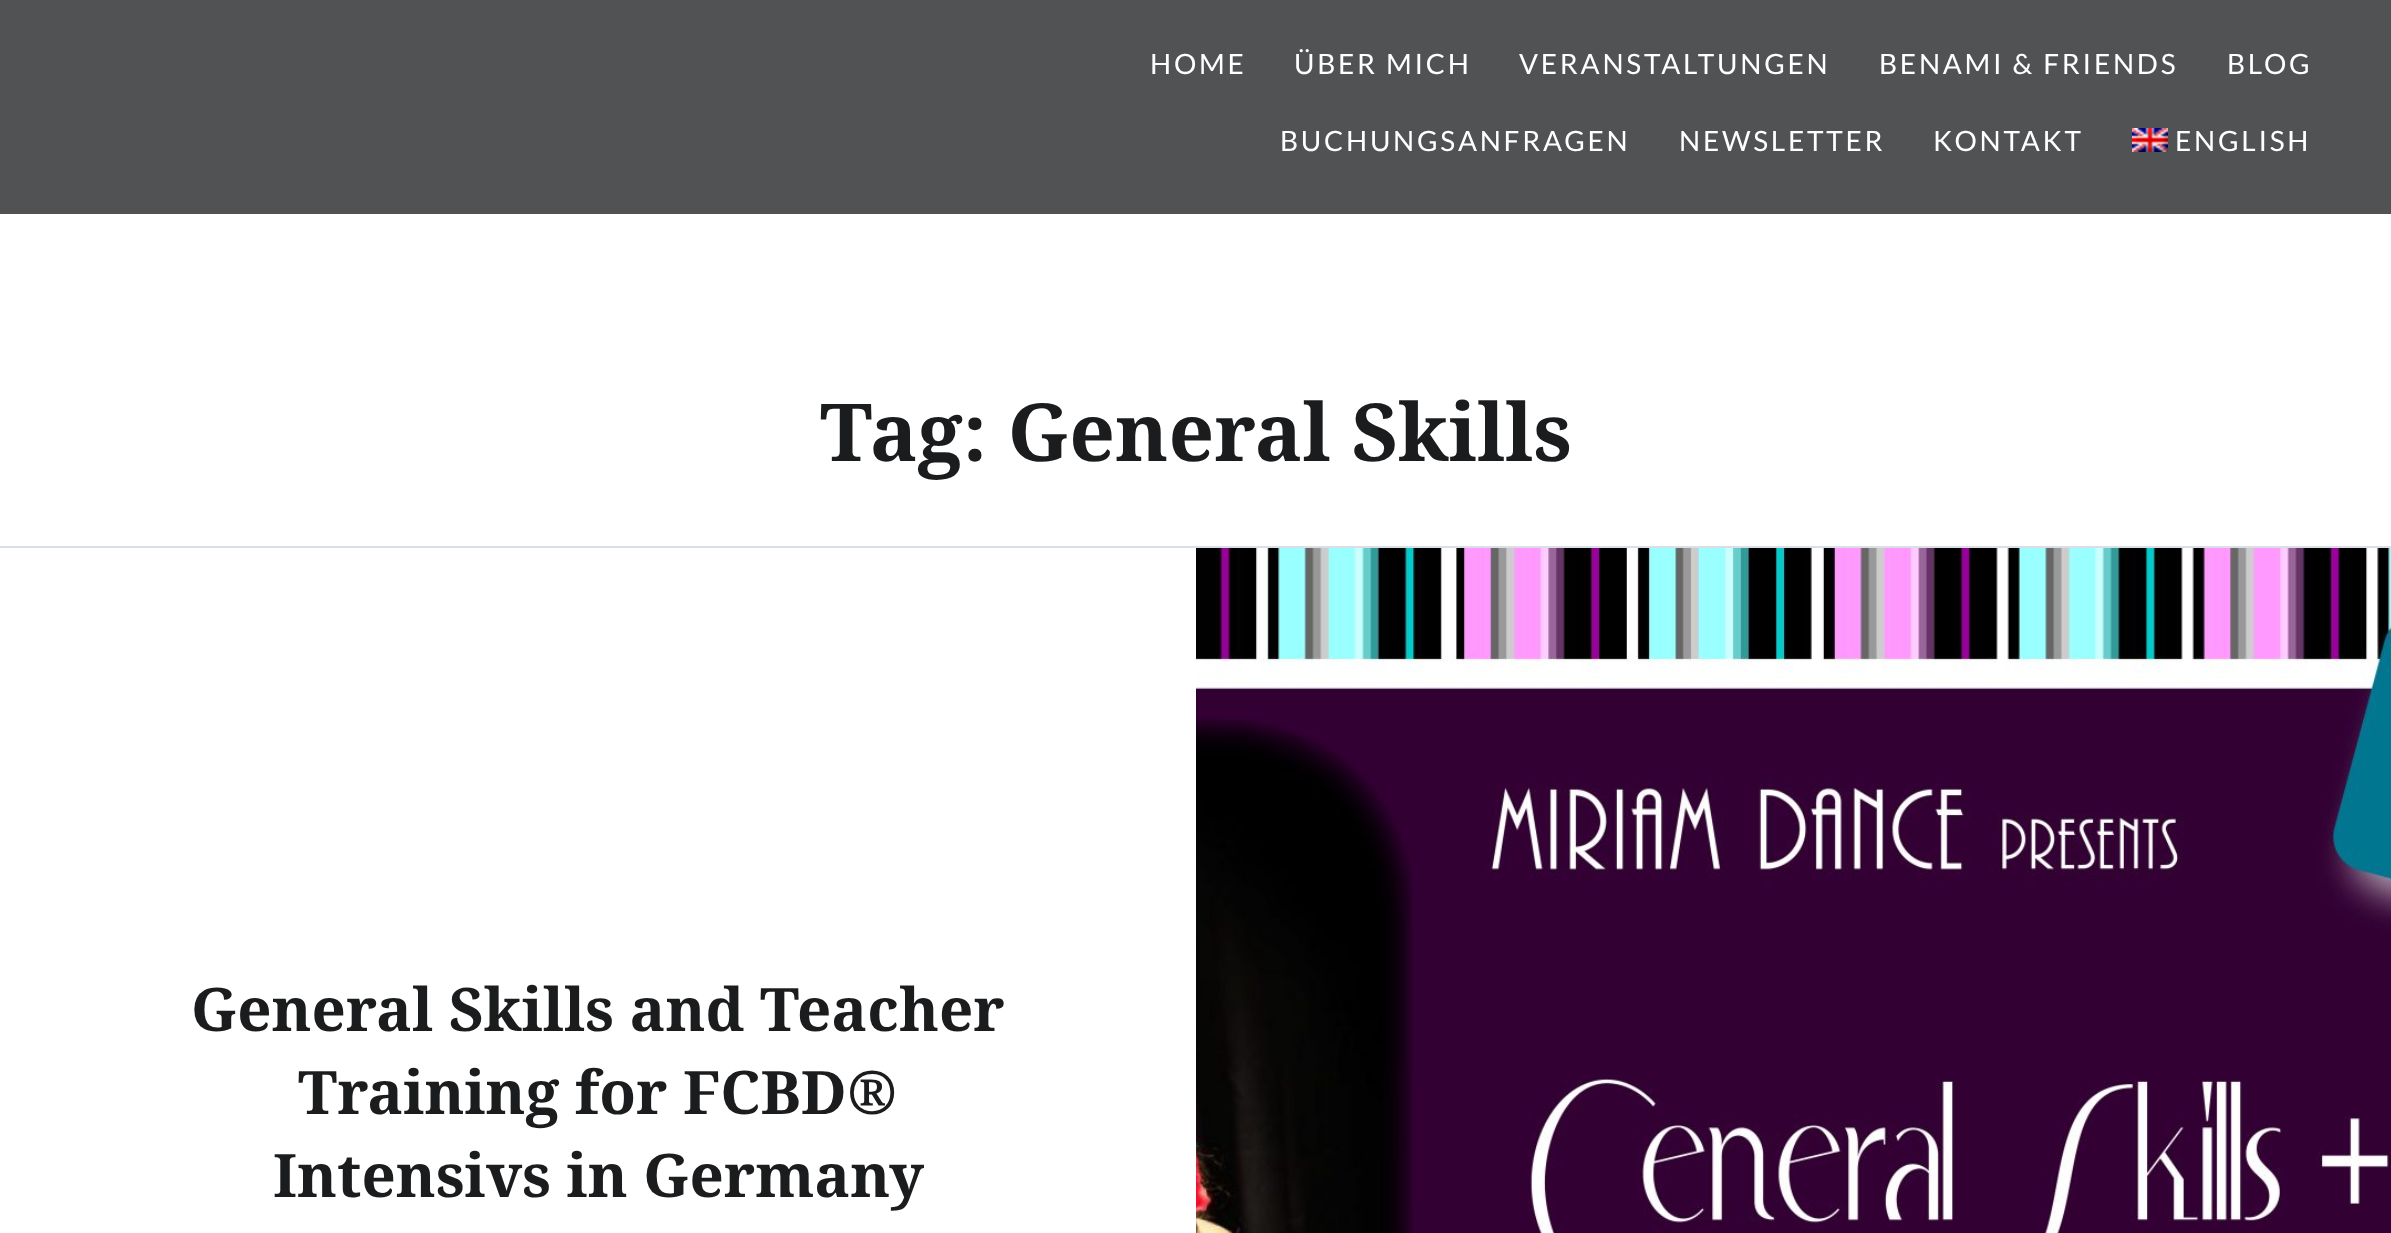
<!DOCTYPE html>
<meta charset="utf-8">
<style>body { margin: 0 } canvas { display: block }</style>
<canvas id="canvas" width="2391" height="1233"></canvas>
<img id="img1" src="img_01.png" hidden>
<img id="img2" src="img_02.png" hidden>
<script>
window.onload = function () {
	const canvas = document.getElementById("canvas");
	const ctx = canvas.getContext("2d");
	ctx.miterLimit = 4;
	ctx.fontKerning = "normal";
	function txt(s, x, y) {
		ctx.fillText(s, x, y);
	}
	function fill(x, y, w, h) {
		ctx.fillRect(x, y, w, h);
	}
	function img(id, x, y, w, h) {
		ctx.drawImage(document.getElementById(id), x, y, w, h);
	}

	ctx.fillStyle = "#FFFFFF";
	fill(0, 0, 2391, 1233);
	ctx.fillStyle = "#505254";
	fill(0, 0, 2391, 214);
	img("img1", 2132, 128, 36, 24);
	ctx.fillStyle = "#D9DFE5";
	fill(0, 546, 2391, 2);
	img("img2", 1196, 548, 1195, 685);
	ctx.letterSpacing = "2.75px";
	ctx.font = "28px Lato";
	ctx.fillStyle = "#FFFFFF";
	txt("HOME", 1150, 74);
	txt("ÜBER MICH", 1294, 74);
	txt("VERANSTALTUNGEN", 1519, 74);
	txt("BENAMI & FRIENDS", 1879, 74);
	txt("BLOG", 2227, 74);
	txt("BUCHUNGSANFRAGEN", 1280, 151);
	txt("NEWSLETTER", 1679, 151);
	txt("KONTAKT", 1933, 151);
	txt("ENGLISH", 2175, 151);
	ctx.letterSpacing = "0px";
	ctx.font = "bold 80px Noto Serif";
	ctx.fillStyle = "#1A1C1E";
	txt("Tag: General Skills", 820, 461);
	ctx.font = "bold 60px Noto Serif";
	txt("General Skills and Teacher", 191, 1031);
	txt("Training for FCBD®", 298, 1114);
	txt("Intensivs in Germany", 273, 1197);
};
</script>
